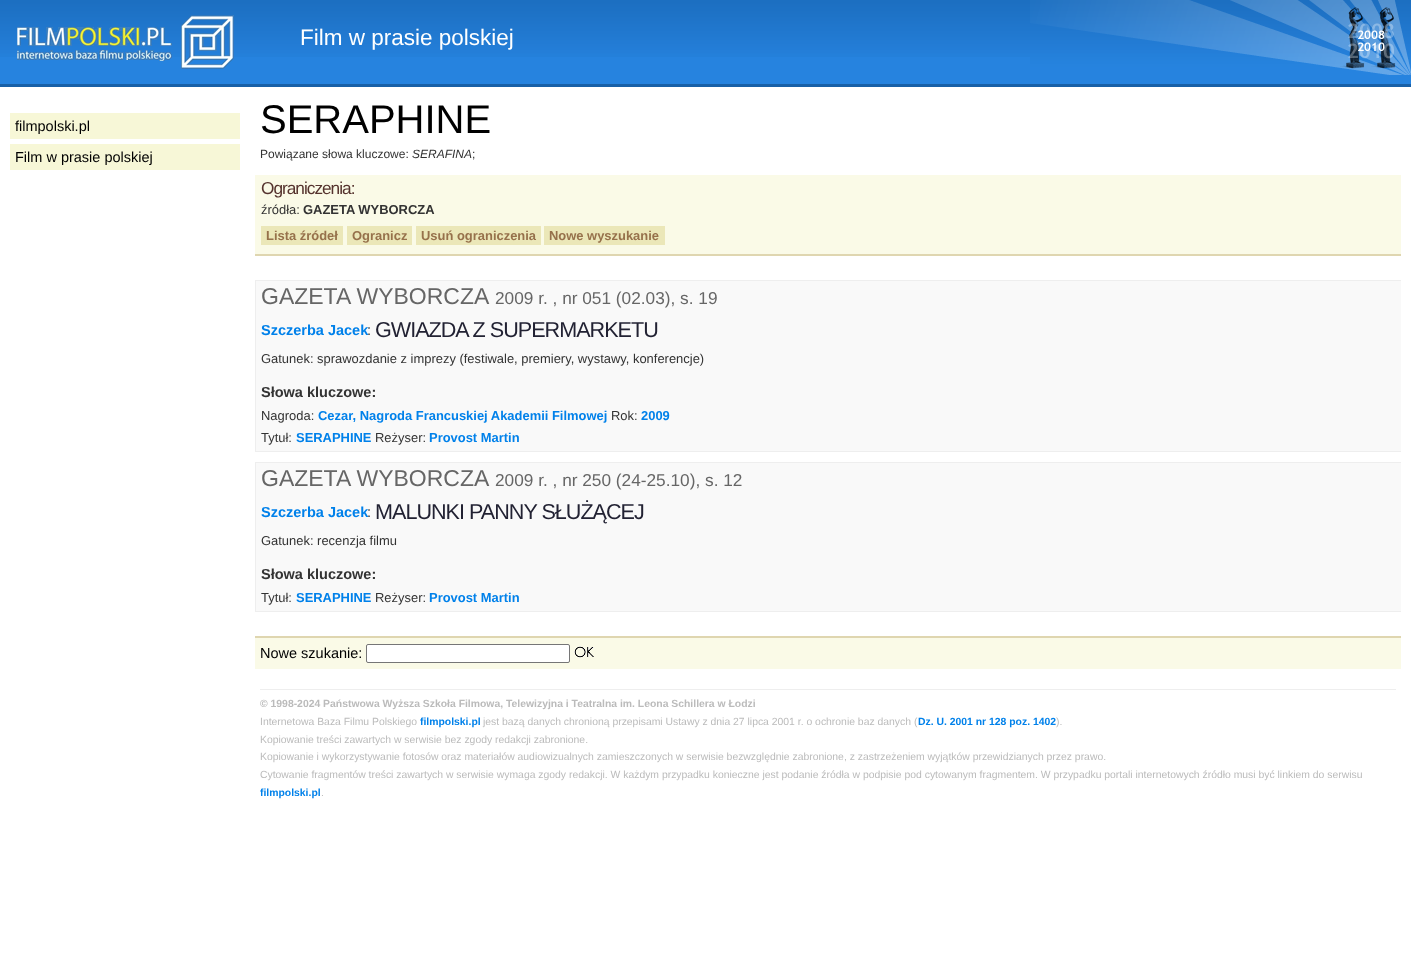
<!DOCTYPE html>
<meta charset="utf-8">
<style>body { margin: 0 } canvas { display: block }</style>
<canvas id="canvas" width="1411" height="980"></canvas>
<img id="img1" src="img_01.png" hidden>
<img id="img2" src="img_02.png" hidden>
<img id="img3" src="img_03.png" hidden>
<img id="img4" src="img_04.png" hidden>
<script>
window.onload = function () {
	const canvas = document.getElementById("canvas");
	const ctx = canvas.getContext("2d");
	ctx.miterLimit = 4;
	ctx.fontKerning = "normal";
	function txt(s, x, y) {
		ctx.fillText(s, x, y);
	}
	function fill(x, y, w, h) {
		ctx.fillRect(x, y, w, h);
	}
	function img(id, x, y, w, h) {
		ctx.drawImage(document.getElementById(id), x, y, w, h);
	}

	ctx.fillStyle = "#FFFFFF";
	fill(0, 0, 1411, 980);
	ctx.fillStyle = "#2683DF";
	fill(0, 57, 1411, 27);
	img("img1", 0, 0, 1030, 57);
	img("img2", 1030, 0, 381, 75);
	img("img3", 17, 15, 217, 54);
	ctx.fillStyle = "#F7F7D7";
	fill(10, 113, 230, 26);
	fill(10, 144, 230, 26);
	ctx.fillStyle = "#1860A7";
	fill(0, 84, 1411, 3);
	ctx.fillStyle = "#FAFAE7";
	fill(255, 175, 1146, 79);
	ctx.fillStyle = "#DFD6B0";
	fill(255, 254, 1146, 2);
	ctx.fillStyle = "#EBE7B8";
	fill(261, 226, 82, 19);
	fill(347, 226, 65, 19);
	fill(416, 226, 125, 19);
	fill(544, 226, 121, 19);
	ctx.fillStyle = "#F9F9F9";
	fill(256, 281, 1145, 170);
	ctx.fillStyle = "#EEEEEE";
	fill(255, 280, 1146, 1);
	fill(255, 451, 1146, 1);
	fill(255, 280, 1, 172);
	ctx.fillStyle = "#F9F9F9";
	fill(256, 463, 1145, 148);
	ctx.fillStyle = "#EEEEEE";
	fill(255, 462, 1146, 1);
	fill(255, 611, 1146, 1);
	fill(255, 462, 1, 150);
	ctx.fillStyle = "#FAFAE7";
	fill(255, 638, 1146, 31);
	ctx.fillStyle = "#DFD6B0";
	fill(255, 636, 1146, 2);
	ctx.fillStyle = "#FFFFFF";
	ctx.beginPath();
	ctx.roundRect(366.5, 644.5, 203, 18, 1.5);
	ctx.fill();
	ctx.strokeStyle = "#767676";
	ctx.stroke();
	img("img4", 574, 646, 20, 12);
	ctx.fillStyle = "#EEEEEE";
	fill(260, 689, 1136, 1);
	ctx.font = "22.5px Liberation Sans";
	ctx.fillStyle = "#FFFFFF";
	txt("Film w prasie polskiej", 300, 45);
	ctx.font = "14.5px Liberation Sans";
	ctx.fillStyle = "#000000";
	txt("filmpolski.pl", 15, 131);
	txt("Film w prasie polskiej", 15, 162);
	ctx.font = "40px Liberation Sans";
	txt("SERAPHINE", 260, 133);
	ctx.font = "12px Liberation Sans";
	ctx.fillStyle = "#333333";
	txt("Powiązane słowa kluczowe:", 260, 158);
	ctx.font = "italic 12px Liberation Sans";
	txt("SERAFINA", 412, 158);
	ctx.font = "12px Liberation Sans";
	txt(";", 472, 158);
	ctx.letterSpacing = "-1px";
	ctx.font = "17.25px Liberation Sans";
	ctx.fillStyle = "#55332E";
	txt("Ograniczenia:", 261, 194);
	ctx.letterSpacing = "0px";
	ctx.font = "12.95px Liberation Sans";
	ctx.fillStyle = "#333333";
	txt("źródła:", 261, 214);
	ctx.font = "bold 12.95px Liberation Sans";
	txt("GAZETA WYBORCZA", 303, 214);
	ctx.fillStyle = "#96714B";
	txt("Lista źródeł", 266, 240);
	txt("Ogranicz", 352, 240);
	txt("Usuń ograniczenia", 421, 240);
	txt("Nowe wyszukanie", 549, 240);
	ctx.font = "23px Liberation Sans";
	ctx.fillStyle = "#666666";
	txt("GAZETA WYBORCZA", 261, 304);
	ctx.font = "17.25px Liberation Sans";
	txt("2009 r. , nr 051 (02.03), s. 19", 495, 304);
	ctx.font = "bold 14.5px Liberation Sans";
	ctx.fillStyle = "#0081EA";
	txt("Szczerba Jacek", 261, 335);
	ctx.font = "14.5px Liberation Sans";
	ctx.fillStyle = "#333333";
	txt(":", 367, 335);
	ctx.letterSpacing = "-1px";
	ctx.font = "21.6px Liberation Sans";
	ctx.fillStyle = "#222233";
	txt("GWIAZDA Z SUPERMARKETU", 375, 337);
	ctx.letterSpacing = "0px";
	ctx.font = "12.95px Liberation Sans";
	ctx.fillStyle = "#333333";
	txt("Gatunek: sprawozdanie z imprezy (festiwale, premiery, wystawy, konferencje)", 261, 363);
	ctx.font = "bold 14.5px Liberation Sans";
	txt("Słowa kluczowe:", 261, 397);
	ctx.font = "12.95px Liberation Sans";
	txt("Nagroda:", 261, 420);
	ctx.font = "bold 12.95px Liberation Sans";
	ctx.fillStyle = "#0081EA";
	txt("Cezar, Nagroda Francuskiej Akademii Filmowej", 318, 420);
	ctx.font = "12.95px Liberation Sans";
	ctx.fillStyle = "#333333";
	txt("Rok:", 611, 420);
	ctx.font = "bold 12.95px Liberation Sans";
	ctx.fillStyle = "#0081EA";
	txt("2009", 641, 420);
	ctx.font = "12.95px Liberation Sans";
	ctx.fillStyle = "#333333";
	txt("Tytuł:", 261, 442);
	ctx.font = "bold 12.95px Liberation Sans";
	ctx.fillStyle = "#0081EA";
	txt("SERAPHINE", 296, 442);
	ctx.font = "12.95px Liberation Sans";
	ctx.fillStyle = "#333333";
	txt("Reżyser:", 375, 442);
	ctx.font = "bold 12.95px Liberation Sans";
	ctx.fillStyle = "#0081EA";
	txt("Provost Martin", 429, 442);
	ctx.font = "23px Liberation Sans";
	ctx.fillStyle = "#666666";
	txt("GAZETA WYBORCZA", 261, 486);
	ctx.font = "17.25px Liberation Sans";
	txt("2009 r. , nr 250 (24-25.10), s. 12", 495, 486);
	ctx.font = "bold 14.5px Liberation Sans";
	ctx.fillStyle = "#0081EA";
	txt("Szczerba Jacek", 261, 517);
	ctx.font = "14.5px Liberation Sans";
	ctx.fillStyle = "#333333";
	txt(":", 367, 517);
	ctx.letterSpacing = "-1px";
	ctx.font = "21.6px Liberation Sans";
	ctx.fillStyle = "#222233";
	txt("MALUNKI PANNY SŁUŻĄCEJ", 375, 519);
	ctx.letterSpacing = "0px";
	ctx.font = "12.95px Liberation Sans";
	ctx.fillStyle = "#333333";
	txt("Gatunek: recenzja filmu", 261, 545);
	ctx.font = "bold 14.5px Liberation Sans";
	txt("Słowa kluczowe:", 261, 579);
	ctx.font = "12.95px Liberation Sans";
	txt("Tytuł:", 261, 602);
	ctx.font = "bold 12.95px Liberation Sans";
	ctx.fillStyle = "#0081EA";
	txt("SERAPHINE", 296, 602);
	ctx.font = "12.95px Liberation Sans";
	ctx.fillStyle = "#333333";
	txt("Reżyser:", 375, 602);
	ctx.font = "bold 12.95px Liberation Sans";
	ctx.fillStyle = "#0081EA";
	txt("Provost Martin", 429, 602);
	ctx.font = "14.5px Liberation Sans";
	ctx.fillStyle = "#000000";
	txt("Nowe szukanie:", 260, 658);
	ctx.font = "bold 10.4px Liberation Sans";
	ctx.fillStyle = "#BBBBBB";
	txt("© 1998-2024 Państwowa Wyższa Szkoła Filmowa, Telewizyjna i Teatralna im. Leona Schillera w Łodzi", 260, 707);
	ctx.font = "10.4px Liberation Sans";
	txt("Internetowa Baza Filmu Polskiego", 260, 725);
	ctx.font = "bold 10.4px Liberation Sans";
	ctx.fillStyle = "#0081EA";
	txt("filmpolski.pl", 420, 725);
	ctx.font = "10.4px Liberation Sans";
	ctx.fillStyle = "#BBBBBB";
	txt("jest bazą danych chronioną przepisami Ustawy z dnia 27 lipca 2001 r. o ochronie baz danych (", 483, 725);
	ctx.font = "bold 10.4px Liberation Sans";
	ctx.fillStyle = "#0081EA";
	txt("Dz. U. 2001 nr 128 poz. 1402", 918, 725);
	ctx.font = "10.4px Liberation Sans";
	ctx.fillStyle = "#BBBBBB";
	txt(").", 1056, 725);
	txt("Kopiowanie treści zawartych w serwisie bez zgody redakcji zabronione.", 260, 743);
	txt("Kopiowanie i wykorzystywanie fotosów oraz materiałów audiowizualnych zamieszczonych w serwisie bezwzględnie zabronione, z zastrzeżeniem wyjątków przewidzianych przez prawo.", 260, 760);
	txt("Cytowanie fragmentów treści zawartych w serwisie wymaga zgody redakcji. W każdym przypadku konieczne jest podanie źródła w podpisie pod cytowanym fragmentem. W przypadku portali internetowych źródło musi być linkiem do serwisu", 260, 778);
	ctx.font = "bold 10.4px Liberation Sans";
	ctx.fillStyle = "#0081EA";
	txt("filmpolski.pl", 260, 796);
	ctx.font = "10.4px Liberation Sans";
	ctx.fillStyle = "#BBBBBB";
	txt(".", 321, 796);
};
</script>
